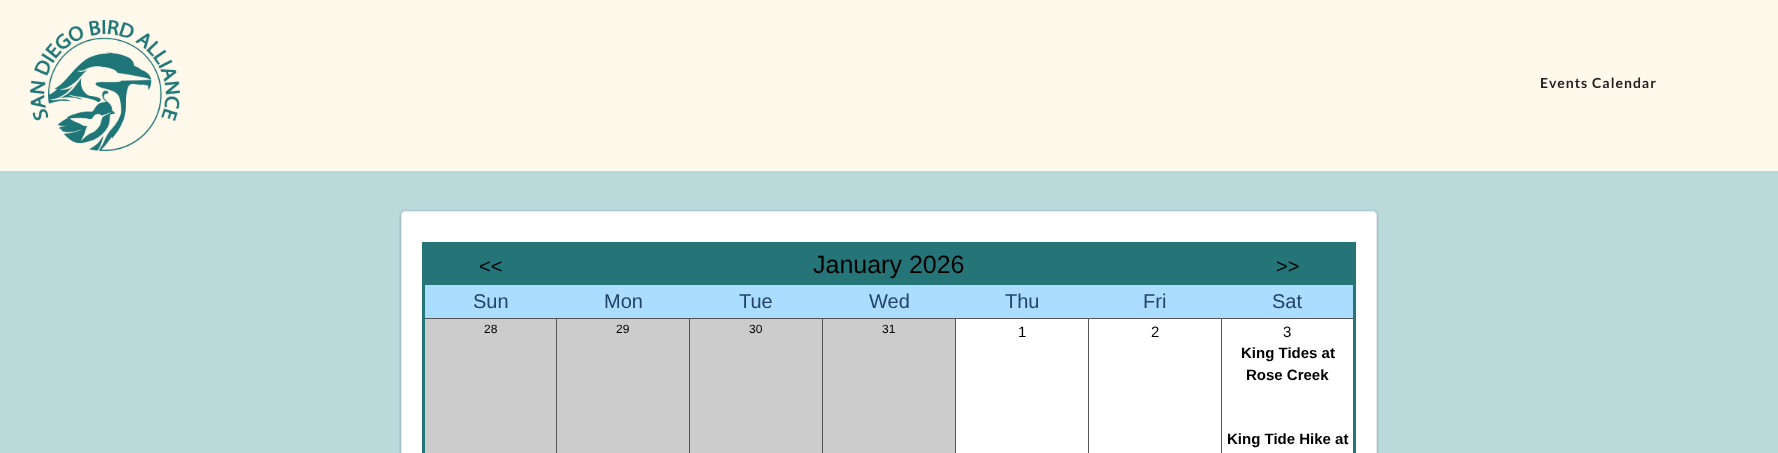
<!DOCTYPE html>
<meta charset="utf-8">
<style>body { margin: 0 } canvas { display: block }</style>
<canvas id="canvas" width="1778" height="453"></canvas>
<img id="img1" src="img_01.png" hidden>
<script>
window.onload = function () {
	const canvas = document.getElementById("canvas");
	const ctx = canvas.getContext("2d");
	ctx.miterLimit = 4;
	ctx.fontKerning = "normal";
	function txt(s, x, y) {
		ctx.fillText(s, x, y);
	}
	function fill(x, y, w, h) {
		ctx.fillRect(x, y, w, h);
	}
	function img(id, x, y, w, h) {
		ctx.drawImage(document.getElementById(id), x, y, w, h);
	}

	ctx.fillStyle = "#BAD9DB";
	fill(0, 0, 1778, 453);
	ctx.fillStyle = "#FFF9EB";
	fill(0, 0, 1778, 171);
	img("img1", 30, 20, 150, 131);
	ctx.fillStyle = "rgba(47, 73, 117, 0.2)";
	ctx.filter = "blur(1.5px)";
	ctx.beginPath();
	ctx.roundRect(401, 212, 976, 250, 4);
	ctx.fill();
	ctx.filter = "none";
	ctx.fillStyle = "rgba(47, 73, 117, 0.12)";
	ctx.filter = "blur(1px)";
	ctx.beginPath();
	ctx.roundRect(401, 213, 976, 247, 4);
	ctx.fill();
	ctx.filter = "none";
	ctx.fillStyle = "rgba(47, 73, 117, 0.14)";
	ctx.filter = "blur(1px)";
	ctx.beginPath();
	ctx.roundRect(401, 211, 976, 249, 4);
	ctx.fill();
	ctx.filter = "none";
	ctx.fillStyle = "#FFFFFF";
	ctx.beginPath();
	ctx.roundRect(401.5, 211.5, 975, 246, 3.5);
	ctx.fill();
	ctx.strokeStyle = "#E6E9EE";
	ctx.stroke();
	ctx.fillStyle = "#257578";
	fill(422, 242, 934, 3);
	ctx.fillStyle = "#555555";
	fill(1221, 318, 134, 1);
	ctx.fillStyle = "#257578";
	fill(1353, 242, 3, 211);
	ctx.fillStyle = "#555555";
	fill(1221, 318, 1, 135);
	fill(1088, 318, 134, 1);
	fill(1088, 318, 1, 135);
	fill(955, 318, 134, 1);
	fill(955, 318, 1, 135);
	fill(822, 318, 134, 1);
	fill(822, 318, 1, 135);
	fill(689, 318, 134, 1);
	fill(689, 318, 1, 135);
	fill(556, 318, 134, 1);
	fill(556, 318, 1, 135);
	fill(423, 318, 134, 1);
	ctx.fillStyle = "#257578";
	fill(422, 242, 3, 211);
	fill(425, 245, 928, 40);
	ctx.fillStyle = "#AADDFF";
	fill(425, 285, 928, 33);
	ctx.fillStyle = "#CCCCCC";
	fill(425, 319, 131, 134);
	fill(557, 319, 132, 134);
	fill(690, 319, 132, 134);
	fill(823, 319, 132, 134);
	ctx.letterSpacing = "1px";
	ctx.font = "bold 14px Lato";
	ctx.fillStyle = "#222222";
	txt("Events Calendar", 1540, 88);
	ctx.letterSpacing = "0px";
	ctx.font = "20px Liberation Sans";
	ctx.fillStyle = "#000000";
	txt("<<", 479, 273);
	ctx.font = "25px Liberation Sans";
	txt("January 2026", 813, 273);
	ctx.font = "20px Liberation Sans";
	txt(">>", 1276, 273);
	ctx.fillStyle = "#224466";
	txt("Sun", 473, 308);
	txt("Mon", 604, 308);
	txt("Tue", 739, 308);
	txt("Wed", 869, 308);
	txt("Thu", 1005, 308);
	txt("Fri", 1143, 308);
	txt("Sat", 1272, 308);
	ctx.font = "12px Liberation Sans";
	ctx.fillStyle = "#000000";
	txt("28", 484, 333);
	txt("29", 616, 333);
	txt("30", 749, 333);
	txt("31", 882, 333);
	ctx.font = "15px Liberation Sans";
	txt("1", 1018, 337);
	txt("2", 1151, 337);
	txt("3", 1283, 337);
	ctx.font = "bold 15px Liberation Sans";
	txt("King Tides at", 1241, 358);
	txt("Rose Creek", 1246, 380);
	txt("King Tide Hike at", 1227, 444);
};
</script>
